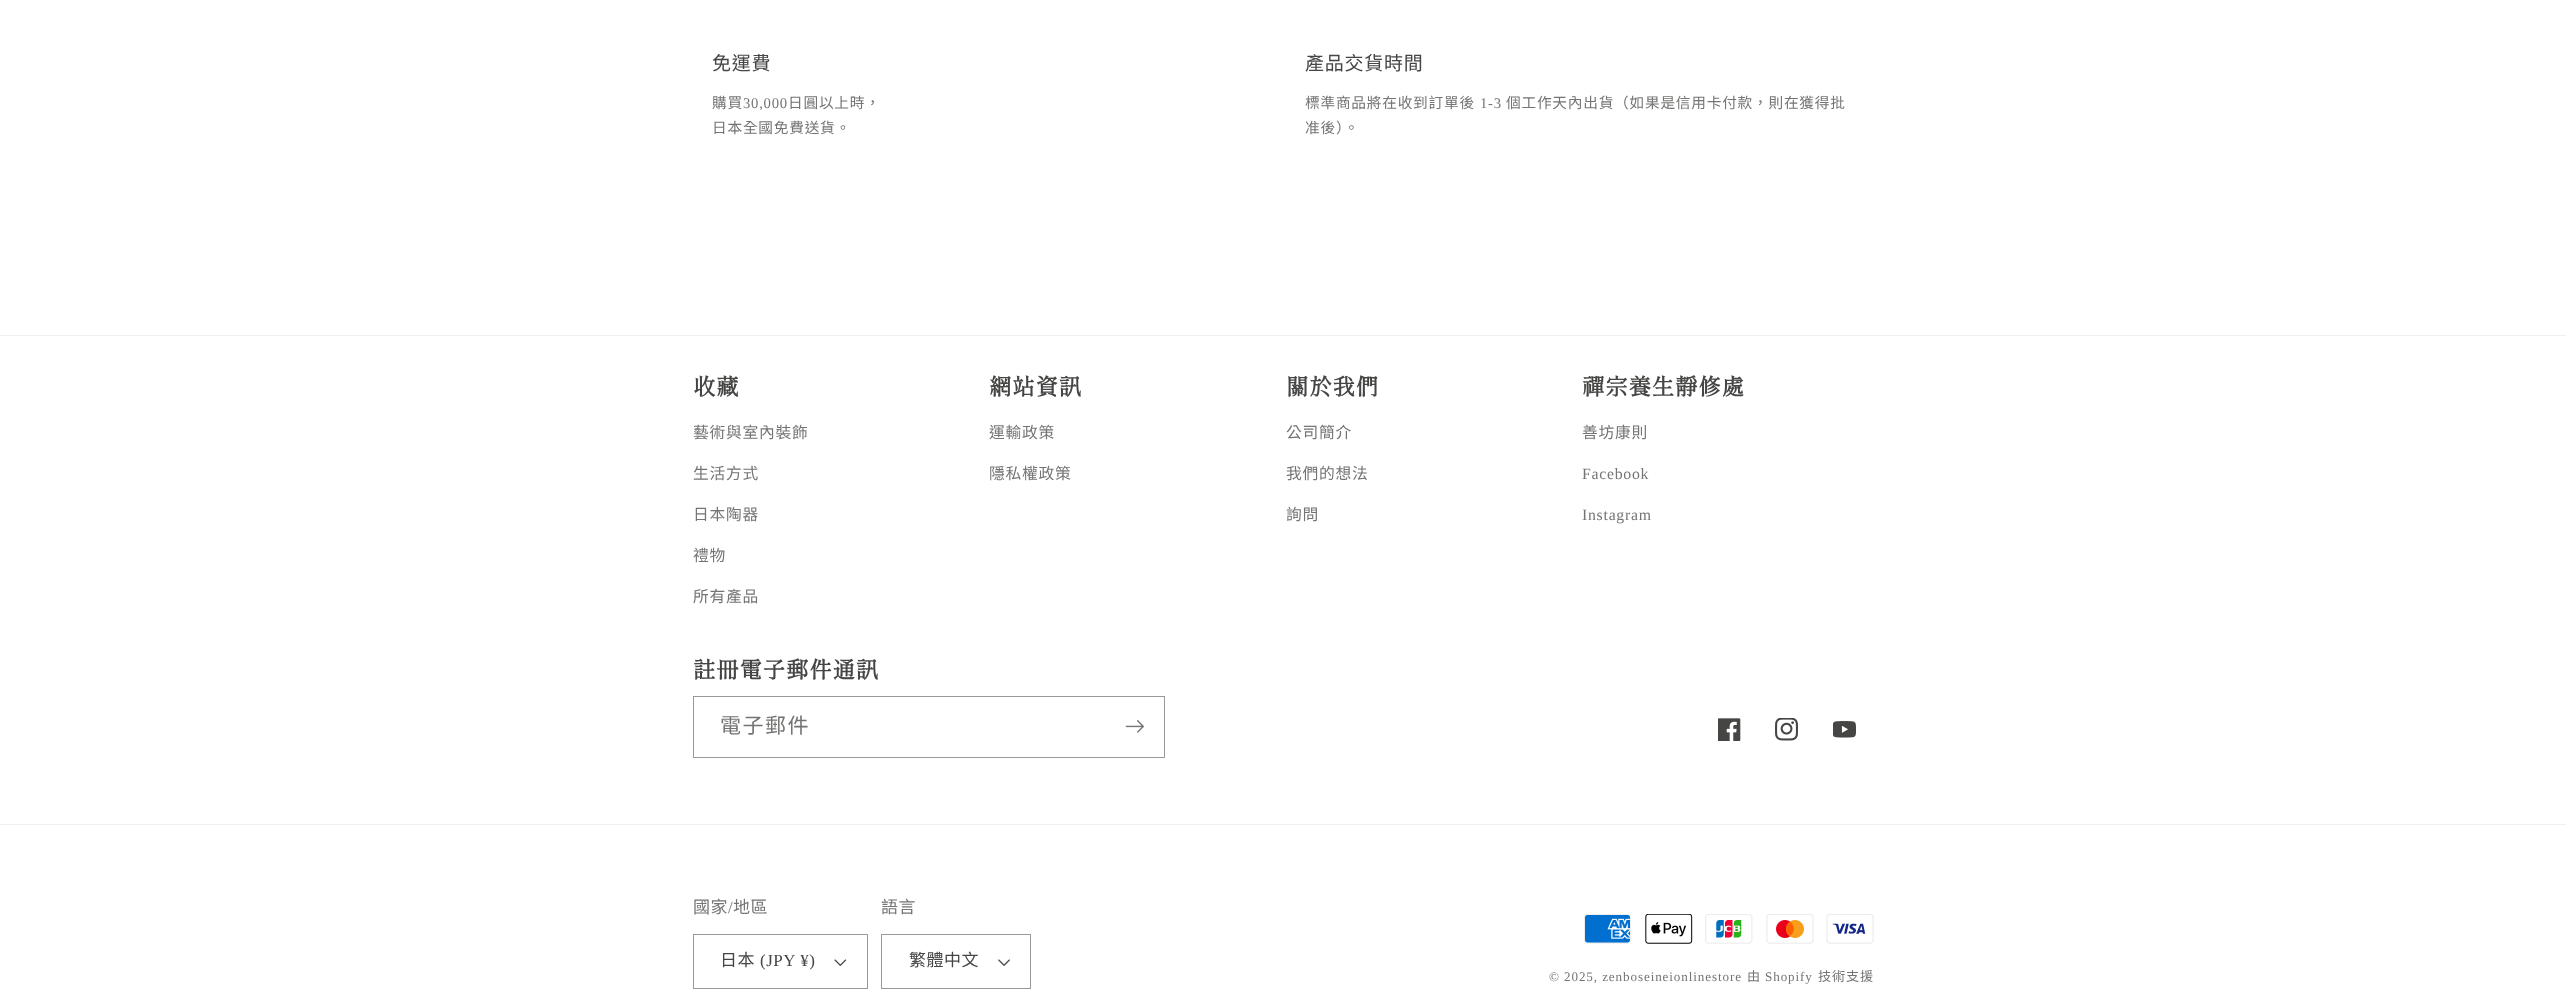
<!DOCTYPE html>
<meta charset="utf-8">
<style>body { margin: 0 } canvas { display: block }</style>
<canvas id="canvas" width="2566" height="990"></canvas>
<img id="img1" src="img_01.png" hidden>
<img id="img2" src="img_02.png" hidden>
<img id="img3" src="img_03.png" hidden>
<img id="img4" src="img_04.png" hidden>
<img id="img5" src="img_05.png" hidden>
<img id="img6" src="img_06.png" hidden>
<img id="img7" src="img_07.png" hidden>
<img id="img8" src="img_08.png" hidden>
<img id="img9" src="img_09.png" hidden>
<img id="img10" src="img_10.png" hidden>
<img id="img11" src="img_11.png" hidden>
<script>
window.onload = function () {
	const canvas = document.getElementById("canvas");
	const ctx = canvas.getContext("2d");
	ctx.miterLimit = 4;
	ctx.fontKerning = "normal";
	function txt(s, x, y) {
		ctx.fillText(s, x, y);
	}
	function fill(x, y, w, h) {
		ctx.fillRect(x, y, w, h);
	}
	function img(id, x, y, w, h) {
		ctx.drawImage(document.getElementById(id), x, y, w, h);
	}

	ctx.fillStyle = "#FFFFFF";
	fill(0, 0, 2566, 990);
	ctx.fillStyle = "#F0F0F0";
	fill(0, 335, 2566, 1);
	ctx.strokeStyle = "#999998";
	ctx.strokeRect(693.5, 696.5, 471, 61);
	img("img1", 1125, 720, 19, 13);
	img("img2", 1718, 718, 23, 23);
	img("img3", 1775, 718, 23, 23);
	img("img4", 1833, 721, 23, 17);
	fill(0, 824, 2566, 1);
	img("img5", 834, 959, 13, 7);
	ctx.strokeRect(693.5, 934.5, 174, 54);
	img("img6", 998, 959, 12, 7);
	ctx.strokeRect(881.5, 934.5, 149, 54);
	img("img7", 1584, 914, 47, 30);
	img("img8", 1645, 914, 48, 30);
	img("img9", 1705, 914, 48, 30);
	img("img10", 1766, 914, 48, 30);
	img("img11", 1826, 914, 48, 30);
	ctx.letterSpacing = "0.75px";
	ctx.font = "19px Noto Sans CJK TC";
	ctx.fillStyle = "#454544";
	txt("免運費", 712, 70);
	ctx.font = "14.7px Noto Sans CJK TC";
	ctx.fillStyle = "#747473";
	txt("購買", 712, 108);
	ctx.font = "14.7px Liberation Serif";
	txt("30,000", 743, 108);
	ctx.font = "14.7px Noto Sans CJK TC";
	txt("日圓以上時，", 788, 108);
	txt("日本全國免費送貨。", 712, 133);
	ctx.font = "19px Noto Sans CJK TC";
	ctx.fillStyle = "#454544";
	txt("產品交貨時間", 1305, 70);
	ctx.font = "14.7px Noto Sans CJK TC";
	ctx.fillStyle = "#747473";
	txt("標準商品將在收到訂單後", 1305, 108);
	ctx.font = "14.7px Liberation Serif";
	txt("1-3", 1480, 108);
	ctx.font = "14.7px Noto Sans CJK TC";
	txt("個工作天內出貨（如果是信用卡付款，則在獲得批", 1506, 108);
	txt("准後）。", 1305, 133);
	ctx.font = "bold 22.5px Shippori Mincho";
	ctx.fillStyle = "#454544";
	txt("收藏", 693, 395);
	ctx.font = "15.75px Noto Sans CJK TC";
	ctx.fillStyle = "#747473";
	txt("藝術與室內裝飾", 693, 438);
	txt("生活方式", 693, 479);
	txt("日本陶器", 693, 520);
	txt("禮物", 693, 561);
	txt("所有產品", 693, 602);
	ctx.font = "bold 22.5px Shippori Mincho";
	ctx.fillStyle = "#454544";
	txt("網站資訊", 989, 395);
	ctx.font = "15.75px Noto Sans CJK TC";
	ctx.fillStyle = "#747473";
	txt("運輸政策", 989, 438);
	txt("隱私權政策", 989, 479);
	ctx.font = "bold 22.5px Shippori Mincho";
	ctx.fillStyle = "#454544";
	txt("關於我們", 1286, 395);
	ctx.font = "15.75px Noto Sans CJK TC";
	ctx.fillStyle = "#747473";
	txt("公司簡介", 1286, 438);
	txt("我們的想法", 1286, 479);
	txt("詢問", 1286, 520);
	ctx.font = "bold 22.5px Shippori Mincho";
	ctx.fillStyle = "#454544";
	txt("禪宗養生靜修處", 1582, 395);
	ctx.font = "15.75px Noto Sans CJK TC";
	ctx.fillStyle = "#747473";
	txt("善坊康則", 1582, 438);
	ctx.font = "15.75px Liberation Serif";
	txt("Facebook", 1582, 479);
	txt("Instagram", 1582, 520);
	ctx.font = "bold 22.5px Shippori Mincho";
	ctx.fillStyle = "#454544";
	txt("註冊電子郵件通訊", 693, 678);
	ctx.letterSpacing = "1.5px";
	ctx.font = "21px Noto Sans CJK TC";
	ctx.fillStyle = "#747473";
	txt("電子郵件", 720, 733);
	ctx.letterSpacing = "0.5px";
	ctx.font = "17px Noto Sans CJK TC";
	txt("國家", 693, 913);
	ctx.font = "17px Liberation Serif";
	txt("/", 728, 913);
	ctx.font = "17px Noto Sans CJK TC";
	txt("地區", 733, 913);
	ctx.fillStyle = "#454544";
	txt("日本", 720, 966);
	ctx.font = "17px Liberation Serif";
	txt("(JPY ¥)", 760, 966);
	ctx.font = "17px Noto Sans CJK TC";
	ctx.fillStyle = "#747473";
	txt("語言", 881, 913);
	ctx.fillStyle = "#454544";
	txt("繁體中文", 909, 966);
	ctx.letterSpacing = "0.9px";
	ctx.font = "13.1px Liberation Serif";
	ctx.fillStyle = "#747473";
	txt("© 2025, zenboseineionlinestore", 1549, 981);
	ctx.font = "13.1px Noto Sans CJK TC";
	txt("由", 1747, 981);
	ctx.font = "13.1px Liberation Serif";
	txt("Shopify", 1765, 981);
	ctx.font = "13.1px Noto Sans CJK TC";
	txt("技術支援", 1818, 981);
};
</script>
